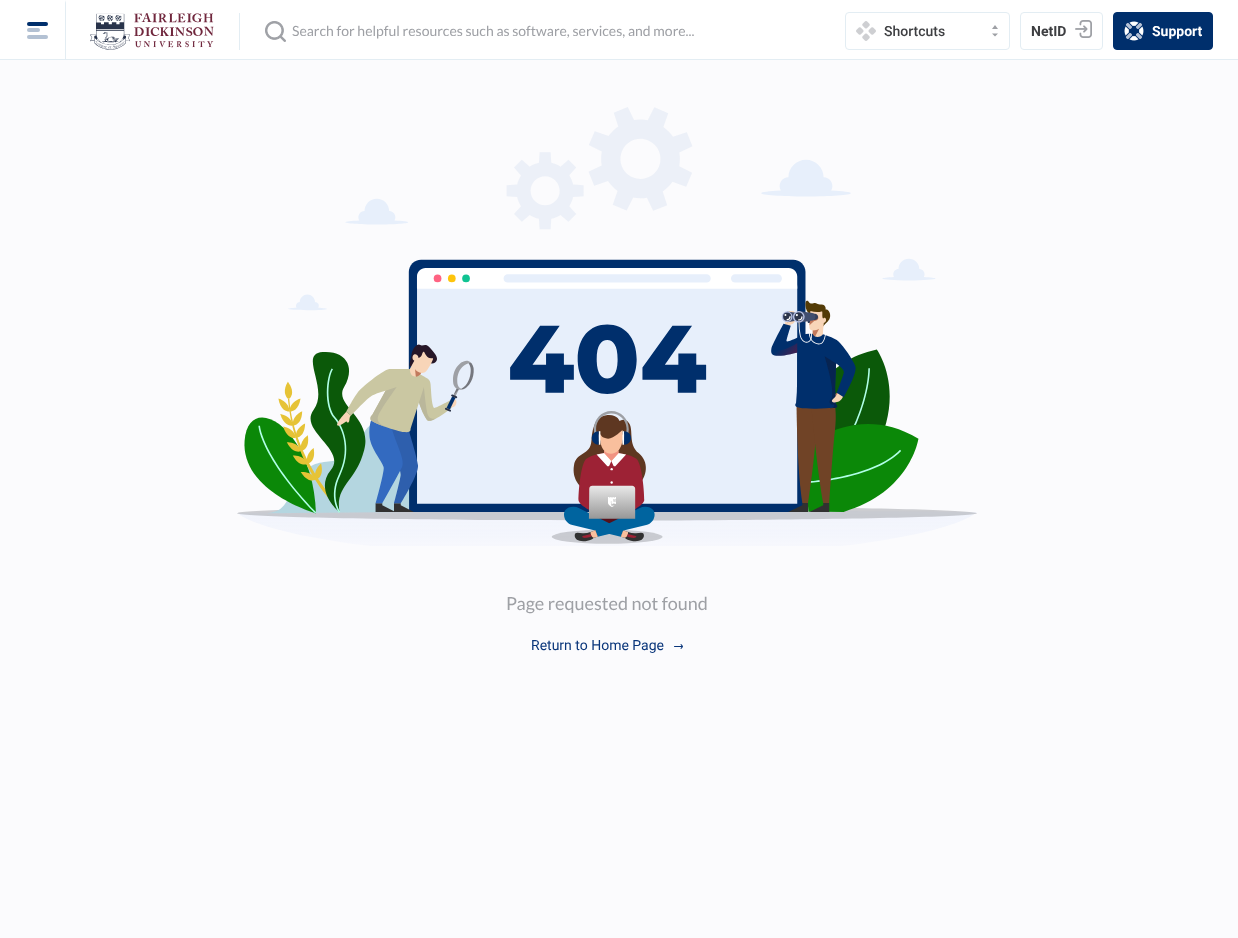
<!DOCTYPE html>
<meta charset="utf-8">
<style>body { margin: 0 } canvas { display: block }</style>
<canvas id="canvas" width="1238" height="938"></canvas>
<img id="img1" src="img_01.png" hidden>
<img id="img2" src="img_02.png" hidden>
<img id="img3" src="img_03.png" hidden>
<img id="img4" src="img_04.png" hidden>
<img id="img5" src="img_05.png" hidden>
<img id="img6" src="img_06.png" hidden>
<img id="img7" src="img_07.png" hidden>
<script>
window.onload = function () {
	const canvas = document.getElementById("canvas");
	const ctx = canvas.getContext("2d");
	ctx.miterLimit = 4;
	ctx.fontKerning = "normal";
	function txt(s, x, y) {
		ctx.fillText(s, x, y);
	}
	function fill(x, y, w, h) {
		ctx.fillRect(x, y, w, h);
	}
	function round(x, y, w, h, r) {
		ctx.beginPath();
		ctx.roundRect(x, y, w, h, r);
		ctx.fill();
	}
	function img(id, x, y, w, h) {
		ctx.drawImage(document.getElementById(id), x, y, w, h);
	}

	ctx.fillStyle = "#FBFBFD";
	fill(0, 0, 1238, 938);
	ctx.fillStyle = "#FFFFFF";
	fill(0, 0, 1238, 59);
	ctx.fillStyle = "#E3EDF3";
	fill(0, 59, 1238, 1);
	ctx.beginPath();
	ctx.moveTo(66, 0);
	ctx.lineTo(66, 59);
	ctx.lineTo(65, 59);
	ctx.lineTo(65, 3);
	ctx.closePath();
	ctx.fill();
	ctx.fillStyle = "#002F6C";
	round(27, 22, 21, 4, 2);
	ctx.fillStyle = "#B3C1D3";
	round(27, 28, 13, 4, 2);
	round(27, 35, 21, 4, 2);
	ctx.fillStyle = "#E3EDF3";
	fill(239, 13, 1, 37);
	img("img1", 90, 13, 124, 37);
	img("img2", 265, 21, 21, 21);
	ctx.beginPath();
	ctx.roundRect(845.5, 12.5, 164, 37, 3.5);
	ctx.strokeStyle = "#E3EDF3";
	ctx.stroke();
	img("img3", 856, 21, 20, 20);
	ctx.fillStyle = "#9EA0A5";
	ctx.beginPath();
	ctx.moveTo(998, 29);
	ctx.lineTo(992, 29);
	ctx.lineTo(995, 25);
	ctx.closePath();
	ctx.moveTo(992, 33.5);
	ctx.lineTo(998, 33.5);
	ctx.lineTo(995, 36.5);
	ctx.closePath();
	ctx.fill();
	ctx.beginPath();
	ctx.roundRect(1020.5, 12.5, 82, 37, 3.5);
	ctx.stroke();
	img("img4", 1075, 20, 17, 18);
	ctx.fillStyle = "#002F6C";
	ctx.beginPath();
	ctx.roundRect(1113.5, 12.5, 99, 37, 3.5);
	ctx.fill();
	ctx.strokeStyle = "#002F6C";
	ctx.stroke();
	img("img5", 1124, 21, 20, 20);
	img("img6", 237, 107, 740, 439);
	img("img7", 674, 644, 9, 5);
	ctx.font = "14px Lato";
	ctx.fillStyle = "#9EA0A5";
	txt("Search for helpful resources such as software, services, and more...", 292, 36);
	ctx.font = "500 14px Roboto";
	ctx.fillStyle = "#3E3F42";
	txt("Shortcuts", 884, 36);
	ctx.font = "bold 14px Roboto";
	txt("NetID", 1031, 36);
	ctx.fillStyle = "#FFFFFF";
	txt("Support", 1152, 36);
	ctx.font = "18px Lato";
	ctx.fillStyle = "#9EA0A5";
	txt("Page requested not found", 506, 610);
	ctx.font = "14px Roboto";
	ctx.fillStyle = "#09357A";
	txt("Return to Home Page", 531, 650);
};
</script>
